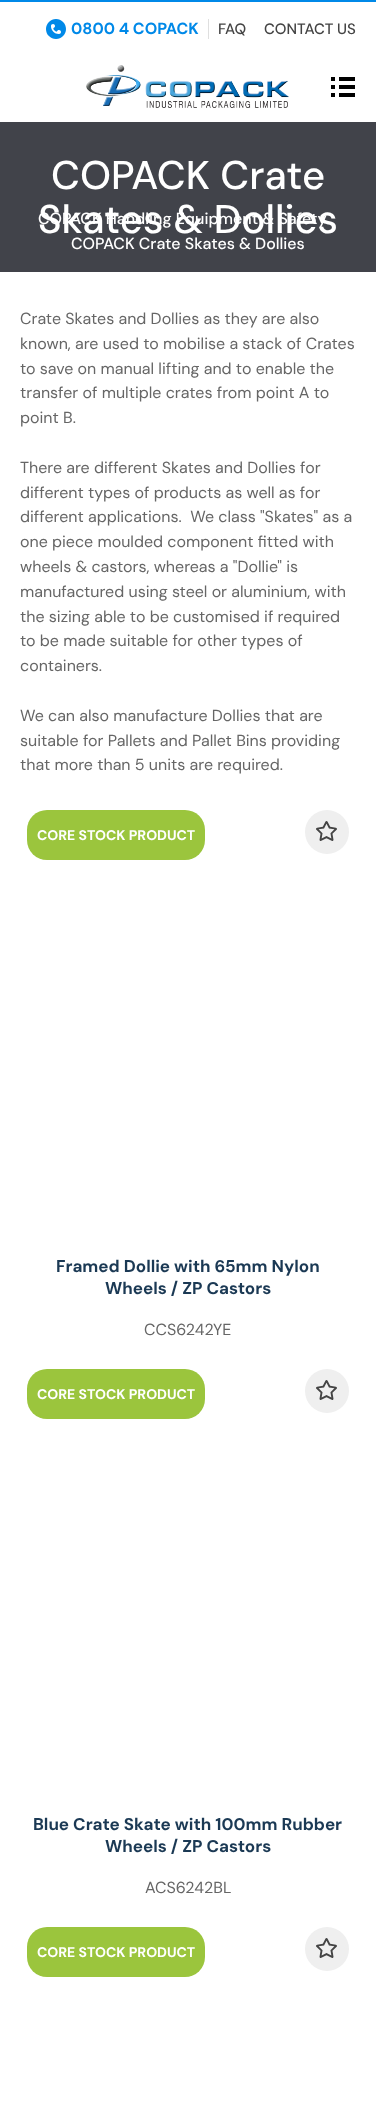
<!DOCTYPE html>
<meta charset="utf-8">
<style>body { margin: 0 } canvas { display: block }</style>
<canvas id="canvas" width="376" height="2128"></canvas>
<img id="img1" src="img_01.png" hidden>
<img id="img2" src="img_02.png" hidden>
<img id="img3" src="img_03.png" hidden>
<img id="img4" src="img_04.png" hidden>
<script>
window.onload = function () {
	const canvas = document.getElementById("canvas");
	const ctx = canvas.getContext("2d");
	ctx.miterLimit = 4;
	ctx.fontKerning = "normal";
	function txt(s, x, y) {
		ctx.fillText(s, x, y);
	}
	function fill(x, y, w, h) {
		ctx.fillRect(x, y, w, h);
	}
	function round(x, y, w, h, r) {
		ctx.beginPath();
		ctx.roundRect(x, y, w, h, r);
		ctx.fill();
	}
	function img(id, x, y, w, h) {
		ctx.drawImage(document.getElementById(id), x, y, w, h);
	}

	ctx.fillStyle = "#FFFFFF";
	fill(0, 0, 376, 2128);
	ctx.fillStyle = "#0089E8";
	fill(0, 0, 376, 2);
	ctx.fillStyle = "#DFDFDF";
	fill(208, 19, 1, 20);
	img("img1", 46, 19, 20, 20);
	img("img2", 86, 65, 203, 43);
	img("img3", 331, 77, 24, 20);
	ctx.fillStyle = "#41434A";
	fill(0, 122, 376, 150);
	ctx.fillStyle = "#9BC53D";
	round(27, 810, 178, 50, 20);
	ctx.fillStyle = "#EFEFEF";
	ctx.beginPath();
	ctx.arc(327, 832, 22, 0, Math.PI * 2);
	ctx.fill();
	img("img4", 316, 821, 21, 20);
	ctx.fillStyle = "#9BC53D";
	round(27, 1369, 178, 50, 20);
	ctx.fillStyle = "#EFEFEF";
	ctx.beginPath();
	ctx.arc(327, 1391, 22, 0, Math.PI * 2);
	ctx.fill();
	img("img4", 316, 1380, 21, 20);
	ctx.fillStyle = "#9BC53D";
	round(27, 1927, 178, 50, 20);
	ctx.fillStyle = "#EFEFEF";
	ctx.beginPath();
	ctx.arc(327, 1949, 22, 0, Math.PI * 2);
	ctx.fill();
	img("img4", 316, 1938, 21, 20);
	ctx.font = "bold 16px DM Sans";
	ctx.fillStyle = "#0089E8";
	txt("0800 4 COPACK", 71, 34);
	ctx.font = "500 15px DM Sans";
	ctx.fillStyle = "#444444";
	txt("FAQ", 218, 34);
	txt("CONTACT US", 264, 34);
	ctx.font = "500 40px DM Sans";
	ctx.fillStyle = "#FFFFFF";
	txt("COPACK Crate", 51, 189);
	ctx.font = "500 16px DM Sans";
	txt("COPACK Handling Equipment & Safety", 38, 224);
	ctx.font = "500 40px DM Sans";
	txt("Skates & Dollies", 38, 233);
	ctx.font = "500 16px DM Sans";
	txt("COPACK Crate Skates & Dollies", 71, 249);
	ctx.font = "16px DM Sans";
	ctx.fillStyle = "#666666";
	txt("Crate Skates and Dollies as they are also", 20, 324);
	txt("known, are used to mobilise a stack of Crates", 20, 349);
	txt("to save on manual lifting and to enable the", 20, 374);
	txt("transfer of multiple crates from point A to", 20, 398);
	txt("point B.", 20, 423);
	txt("There are different Skates and Dollies for", 20, 473);
	txt("different types of products as well as for", 20, 498);
	txt("different applications.  We class \"Skates\" as a", 20, 522);
	txt("one piece moulded component fitted with", 20, 547);
	txt("wheels & castors, whereas a \"Dollie\" is", 20, 572);
	txt("manufactured using steel or aluminium, with", 20, 597);
	txt("the sizing able to be customised if required", 20, 622);
	txt("to be made suitable for other types of", 20, 646);
	txt("containers.", 20, 671);
	txt("We can also manufacture Dollies that are", 20, 721);
	txt("suitable for Pallets and Pallet Bins providing", 20, 746);
	txt("that more than 5 units are required.", 20, 770);
	ctx.font = "bold 14px DM Sans";
	ctx.fillStyle = "#FFFFFF";
	txt("CORE STOCK PRODUCT", 37, 840);
	ctx.font = "bold 17px DM Sans";
	ctx.fillStyle = "#1B3954";
	txt("Framed Dollie with 65mm Nylon", 56, 1272);
	txt("Wheels / ZP Castors", 105, 1294);
	ctx.font = "16px DM Sans";
	ctx.fillStyle = "#666666";
	txt("CCS6242YE", 144, 1335);
	ctx.font = "bold 14px DM Sans";
	ctx.fillStyle = "#FFFFFF";
	txt("CORE STOCK PRODUCT", 37, 1399);
	ctx.font = "bold 17px DM Sans";
	ctx.fillStyle = "#1B3954";
	txt("Blue Crate Skate with 100mm Rubber", 33, 1830);
	txt("Wheels / ZP Castors", 105, 1852);
	ctx.font = "16px DM Sans";
	ctx.fillStyle = "#666666";
	txt("ACS6242BL", 145, 1893);
	ctx.font = "bold 14px DM Sans";
	ctx.fillStyle = "#FFFFFF";
	txt("CORE STOCK PRODUCT", 37, 1957);
};
</script>
